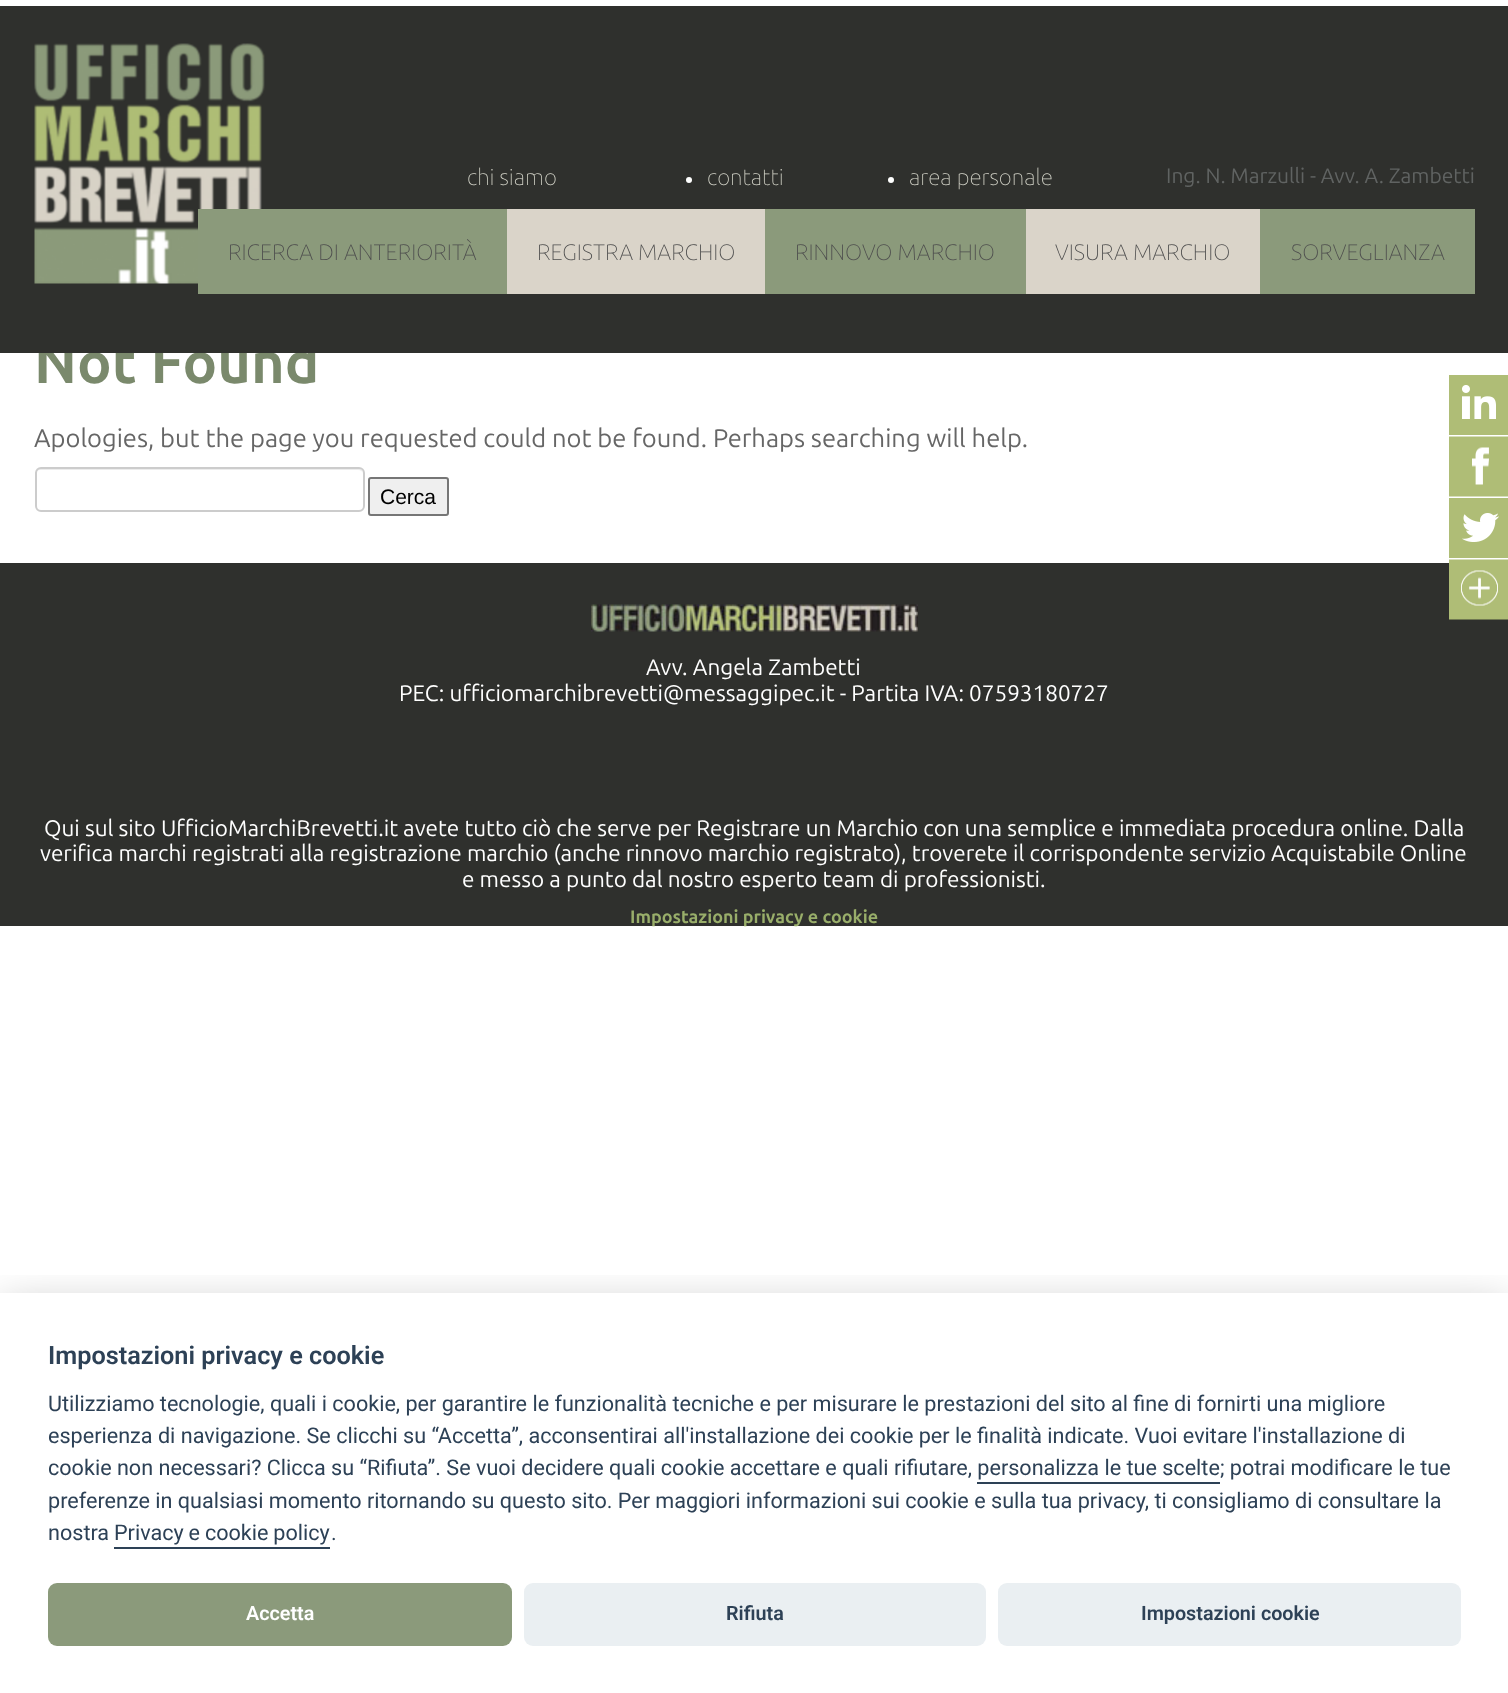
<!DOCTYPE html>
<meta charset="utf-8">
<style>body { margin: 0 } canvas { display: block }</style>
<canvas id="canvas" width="1508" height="1693"></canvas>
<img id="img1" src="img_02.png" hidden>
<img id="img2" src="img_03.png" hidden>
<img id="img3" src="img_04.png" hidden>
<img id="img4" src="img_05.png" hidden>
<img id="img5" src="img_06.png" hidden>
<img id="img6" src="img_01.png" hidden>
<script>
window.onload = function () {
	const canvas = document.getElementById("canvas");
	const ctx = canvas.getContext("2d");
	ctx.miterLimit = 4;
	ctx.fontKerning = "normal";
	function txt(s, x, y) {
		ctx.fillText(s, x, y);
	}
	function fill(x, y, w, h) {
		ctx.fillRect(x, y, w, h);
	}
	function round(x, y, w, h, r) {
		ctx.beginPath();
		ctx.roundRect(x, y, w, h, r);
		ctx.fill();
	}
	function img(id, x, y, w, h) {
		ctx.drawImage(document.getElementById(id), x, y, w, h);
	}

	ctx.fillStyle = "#FFFFFF";
	fill(0, 0, 1508, 1693);
	ctx.fillStyle = "#ECECEC";
	ctx.beginPath();
	ctx.moveTo(40, 470);
	ctx.lineTo(358, 470);
	ctx.bezierCurveTo(361, 470, 363, 472, 363, 474);
	ctx.bezierCurveTo(363, 471, 361, 468, 358, 468);
	ctx.lineTo(41, 468);
	ctx.bezierCurveTo(38, 468, 36, 471, 36, 474);
	ctx.bezierCurveTo(36, 472, 38, 470, 40, 470);
	ctx.closePath();
	ctx.fill();
	ctx.beginPath();
	ctx.roundRect(36, 468, 328, 43, 5);
	ctx.strokeStyle = "#CCCCCC";
	ctx.lineWidth = 2;
	ctx.stroke();
	ctx.fillStyle = "#EFEFEF";
	ctx.beginPath();
	ctx.roundRect(369, 478, 79, 37, 2);
	ctx.fill();
	ctx.strokeStyle = "#767676";
	ctx.stroke();
	img("img1", 1449, 375, 59, 60);
	img("img2", 1449, 436, 59, 61);
	img("img3", 1449, 498, 59, 60);
	ctx.fillStyle = "#2F302D";
	fill(0, 563, 1508, 363);
	img("img4", 1449, 559, 59, 61);
	img("img5", 591, 604, 327, 28);
	ctx.save();
	ctx.beginPath();
	ctx.rect(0, 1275, 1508, 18);
	ctx.clip();
	ctx.fillStyle = "rgba(2, 2, 3, 0.28)";
	ctx.filter = "blur(22.5px)";
	ctx.beginPath();
	ctx.rect(0, 1308, 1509, 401);
	ctx.fill();
	ctx.filter = "none";
	ctx.restore();
	ctx.fillStyle = "#2D4156";
	fill(977, 1482, 243, 2);
	fill(114, 1547, 216, 2);
	ctx.fillStyle = "#8B9A7B";
	round(48, 1583, 464, 63, 9);
	ctx.fillStyle = "#EAEFF2";
	round(524, 1583, 462, 63, 9);
	round(998, 1583, 463, 63, 9);
	ctx.font = "bold 57.75px Ubuntu";
	ctx.fillStyle = "#7A896C";
	txt("Not Found", 34, 383);
	ctx.fillStyle = "#2F302D";
	fill(0, 6, 1508, 347);
	ctx.font = "21px Ubuntu";
	ctx.fillStyle = "#606362";
	txt("Ing. N. Marzulli - Avv. A. Zambetti", 1166, 183);
	ctx.fillStyle = "#8B9A7B";
	fill(1260, 209, 215, 85);
	ctx.font = "100 22.5px Ubuntu";
	ctx.fillStyle = "#4D4D4D";
	txt("SORVEGLIANZA", 1291, 260);
	ctx.fillStyle = "#DAD4C9";
	fill(1026, 209, 234, 85);
	ctx.fillStyle = "#4D4D4D";
	txt("VISURA MARCHIO", 1055, 260);
	ctx.fillStyle = "#8B9A7B";
	fill(765, 209, 261, 85);
	ctx.fillStyle = "#4D4D4D";
	txt("RINNOVO MARCHIO", 795, 260);
	ctx.fillStyle = "#DAD4C9";
	fill(507, 209, 258, 85);
	ctx.fillStyle = "#4D4D4D";
	txt("REGISTRA MARCHIO", 537, 260);
	img("img6", 34, 43, 231, 241);
	ctx.fillStyle = "#8B9A7B";
	fill(198, 209, 309, 85);
	ctx.fillStyle = "#4D4D4D";
	txt("RICERCA DI ANTERIORITÀ", 228, 260);
	ctx.fillStyle = "#D4D4C9";
	txt("area personale", 909, 185);
	ctx.fillStyle = "#FFFFFF";
	ctx.beginPath();
	ctx.arc(891, 180, 3, 0, Math.PI * 2);
	ctx.fill();
	ctx.fillStyle = "#D4D4C9";
	txt("contatti", 707, 185);
	ctx.fillStyle = "#FFFFFF";
	ctx.beginPath();
	ctx.arc(689, 180, 3, 0, Math.PI * 2);
	ctx.fill();
	ctx.fillStyle = "#D4D4C9";
	txt("chi siamo", 467, 185);
	ctx.font = "25.5px Ubuntu";
	ctx.fillStyle = "#666666";
	txt("Apologies, but the page you requested could not be found. Perhaps searching will help.", 34, 447);
	ctx.font = "21px Liberation Sans";
	ctx.fillStyle = "#000000";
	txt("Cerca", 380, 504);
	ctx.font = "22.5px Ubuntu";
	ctx.fillStyle = "#FFFFFF";
	txt("Avv. Angela Zambetti", 646, 675);
	txt("PEC: ufficiomarchibrevetti@messaggipec.it - Partita IVA: 07593180727", 399, 701);
	txt("Qui sul sito UfficioMarchiBrevetti.it avete tutto ciò che serve per Registrare un Marchio con una semplice e immediata procedura online. Dalla", 44, 836);
	txt("verifica marchi registrati alla registrazione marchio (anche rinnovo marchio registrato), troverete il corrispondente servizio Acquistabile Online", 40, 861);
	txt("e messo a punto dal nostro esperto team di professionisti.", 462, 887);
	ctx.font = "bold 18px Ubuntu";
	ctx.fillStyle = "#99AE6A";
	txt("Impostazioni privacy e cookie", 630, 923);
	ctx.font = "600 25.25px Roboto";
	ctx.fillStyle = "#2D4156";
	txt("Impostazioni privacy e cookie", 48, 1364);
	ctx.font = "21.6px Roboto";
	txt("Utilizziamo tecnologie, quali i cookie, per garantire le funzionalità tecniche e per misurare le prestazioni del sito al fine di fornirti una migliore", 48, 1411);
	txt("esperienza di navigazione. Se clicchi su “Accetta”, acconsentirai all'installazione dei cookie per le finalità indicate. Vuoi evitare l'installazione di", 48, 1443);
	txt("cookie non necessari? Clicca su “Rifiuta”. Se vuoi decidere quali cookie accettare e quali rifiutare, personalizza le tue scelte; potrai modificare le tue", 48, 1475);
	txt("preferenze in qualsiasi momento ritornando su questo sito. Per maggiori informazioni sui cookie e sulla tua privacy, ti consigliamo di consultare la", 48, 1508);
	txt("nostra", 48, 1540);
	ctx.wordSpacing = "-0.5px";
	txt("Privacy e cookie policy", 114, 1540);
	ctx.wordSpacing = "0px";
	txt(".", 331, 1540);
	ctx.font = "600 19.75px Roboto";
	ctx.fillStyle = "#FFFFFF";
	txt("Accetta", 246, 1620);
	ctx.fillStyle = "#2D4156";
	txt("Rifiuta", 726, 1620);
	txt("Impostazioni cookie", 1141, 1620);
};
</script>
